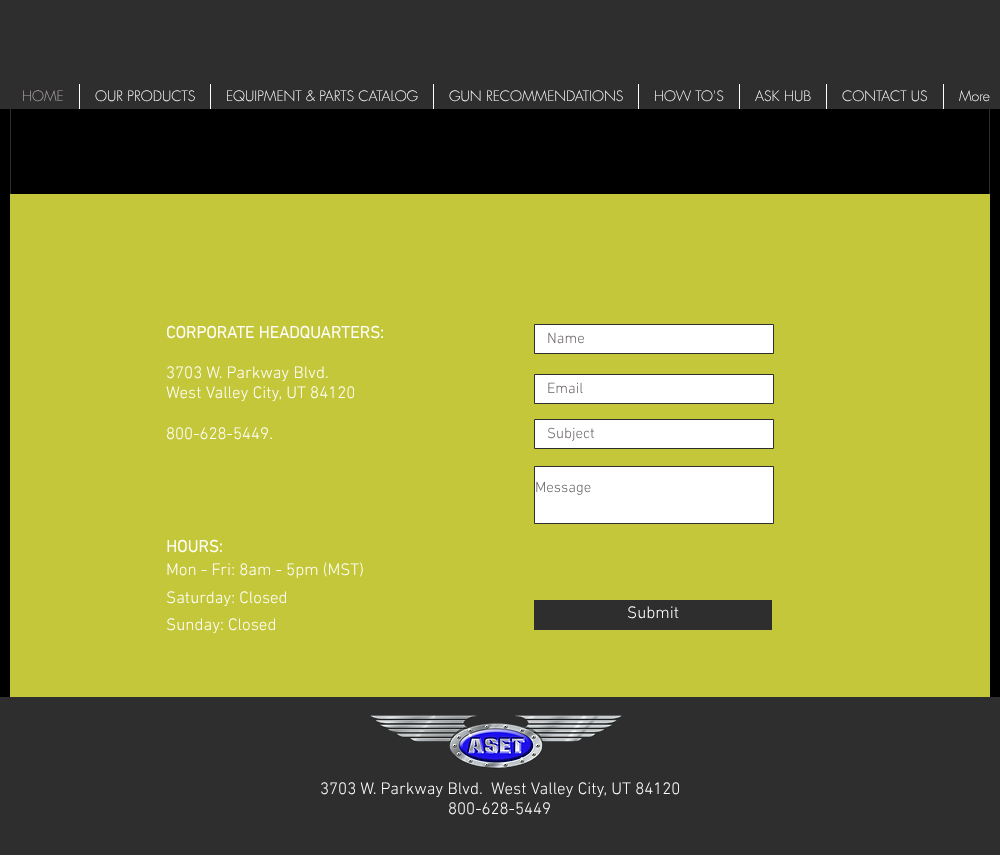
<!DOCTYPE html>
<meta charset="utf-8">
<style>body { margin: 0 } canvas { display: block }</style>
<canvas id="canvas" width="1000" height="855"></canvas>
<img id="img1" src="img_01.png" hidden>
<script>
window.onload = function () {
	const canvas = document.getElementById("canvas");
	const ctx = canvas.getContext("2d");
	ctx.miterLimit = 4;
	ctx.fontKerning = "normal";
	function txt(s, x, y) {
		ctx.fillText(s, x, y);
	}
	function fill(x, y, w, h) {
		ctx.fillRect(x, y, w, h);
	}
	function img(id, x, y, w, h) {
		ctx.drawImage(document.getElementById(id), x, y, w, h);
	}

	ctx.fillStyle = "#000000";
	fill(0, 0, 1000, 855);
	ctx.strokeStyle = "#2F2E2E";
	ctx.strokeRect(10.5, -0.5, 979, 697);
	ctx.fillStyle = "#2F2E2E";
	fill(0, 0, 1000, 109);
	ctx.fillStyle = "#FFFFFF";
	fill(79, 84, 1, 25);
	fill(210, 84, 1, 25);
	fill(433, 84, 1, 25);
	fill(638, 84, 1, 25);
	fill(739, 84, 1, 25);
	fill(826, 84, 1, 25);
	fill(943, 84, 1, 25);
	ctx.fillStyle = "#C5C73A";
	fill(10, 194, 980, 503);
	ctx.fillStyle = "#FFFFFF";
	ctx.beginPath();
	ctx.rect(534.5, 324.5, 239, 29);
	ctx.fill();
	ctx.stroke();
	ctx.beginPath();
	ctx.rect(534.5, 374.5, 239, 29);
	ctx.fill();
	ctx.stroke();
	ctx.beginPath();
	ctx.rect(534.5, 419.5, 239, 29);
	ctx.fill();
	ctx.stroke();
	ctx.beginPath();
	ctx.rect(534.5, 466.5, 239, 57);
	ctx.fill();
	ctx.stroke();
	ctx.fillStyle = "#2F2E2E";
	fill(534, 600, 238, 30);
	fill(0, 697, 1000, 158);
	img("img1", 370, 715, 252, 54);
	ctx.font = "300 14px futura";
	ctx.fillStyle = "#B0AAA9";
	txt("HOME", 22, 101);
	ctx.fillStyle = "#FFFFFF";
	txt("OUR PRODUCTS", 95, 101);
	txt("EQUIPMENT & PARTS CATALOG", 226, 101);
	txt("GUN RECOMMENDATIONS", 449, 101);
	txt("HOW TO'S", 654, 101);
	txt("ASK HUB", 755, 101);
	txt("CONTACT US", 842, 101);
	txt("More", 959, 101);
	ctx.font = "bold 17px 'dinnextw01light'";
	txt("CORPORATE HEADQUARTERS:", 166, 338);
	ctx.font = "300 17px 'dinnextw01light'";
	txt("3703 W. Parkway Blvd.", 166, 378);
	txt("West Valley City, UT 84120", 166, 398);
	txt("800-628-5449.", 166, 439);
	ctx.font = "300 15px 'dinnextw01light'";
	ctx.fillStyle = "#6E6968";
	txt("Name", 547, 343);
	txt("Email", 547, 393);
	txt("Subject", 547, 438);
	txt("Message", 535, 492);
	ctx.font = "300 17px 'dinnextw01light'";
	ctx.fillStyle = "#FFFFFF";
	txt("Submit", 627, 618);
	ctx.font = "bold 17px 'dinnextw01light'";
	txt("HOURS:", 166, 552);
	ctx.font = "300 17px 'dinnextw01light'";
	txt("Mon - Fri: 8am - 5pm (MST)", 166, 575);
	txt("Saturday: Closed", 166, 603);
	txt("Sunday: Closed", 166, 630);
	txt("3703 W. Parkway Blvd.  West Valley City, UT 84120", 320, 794);
	txt("800-628-5449", 448, 814);
};
</script>
